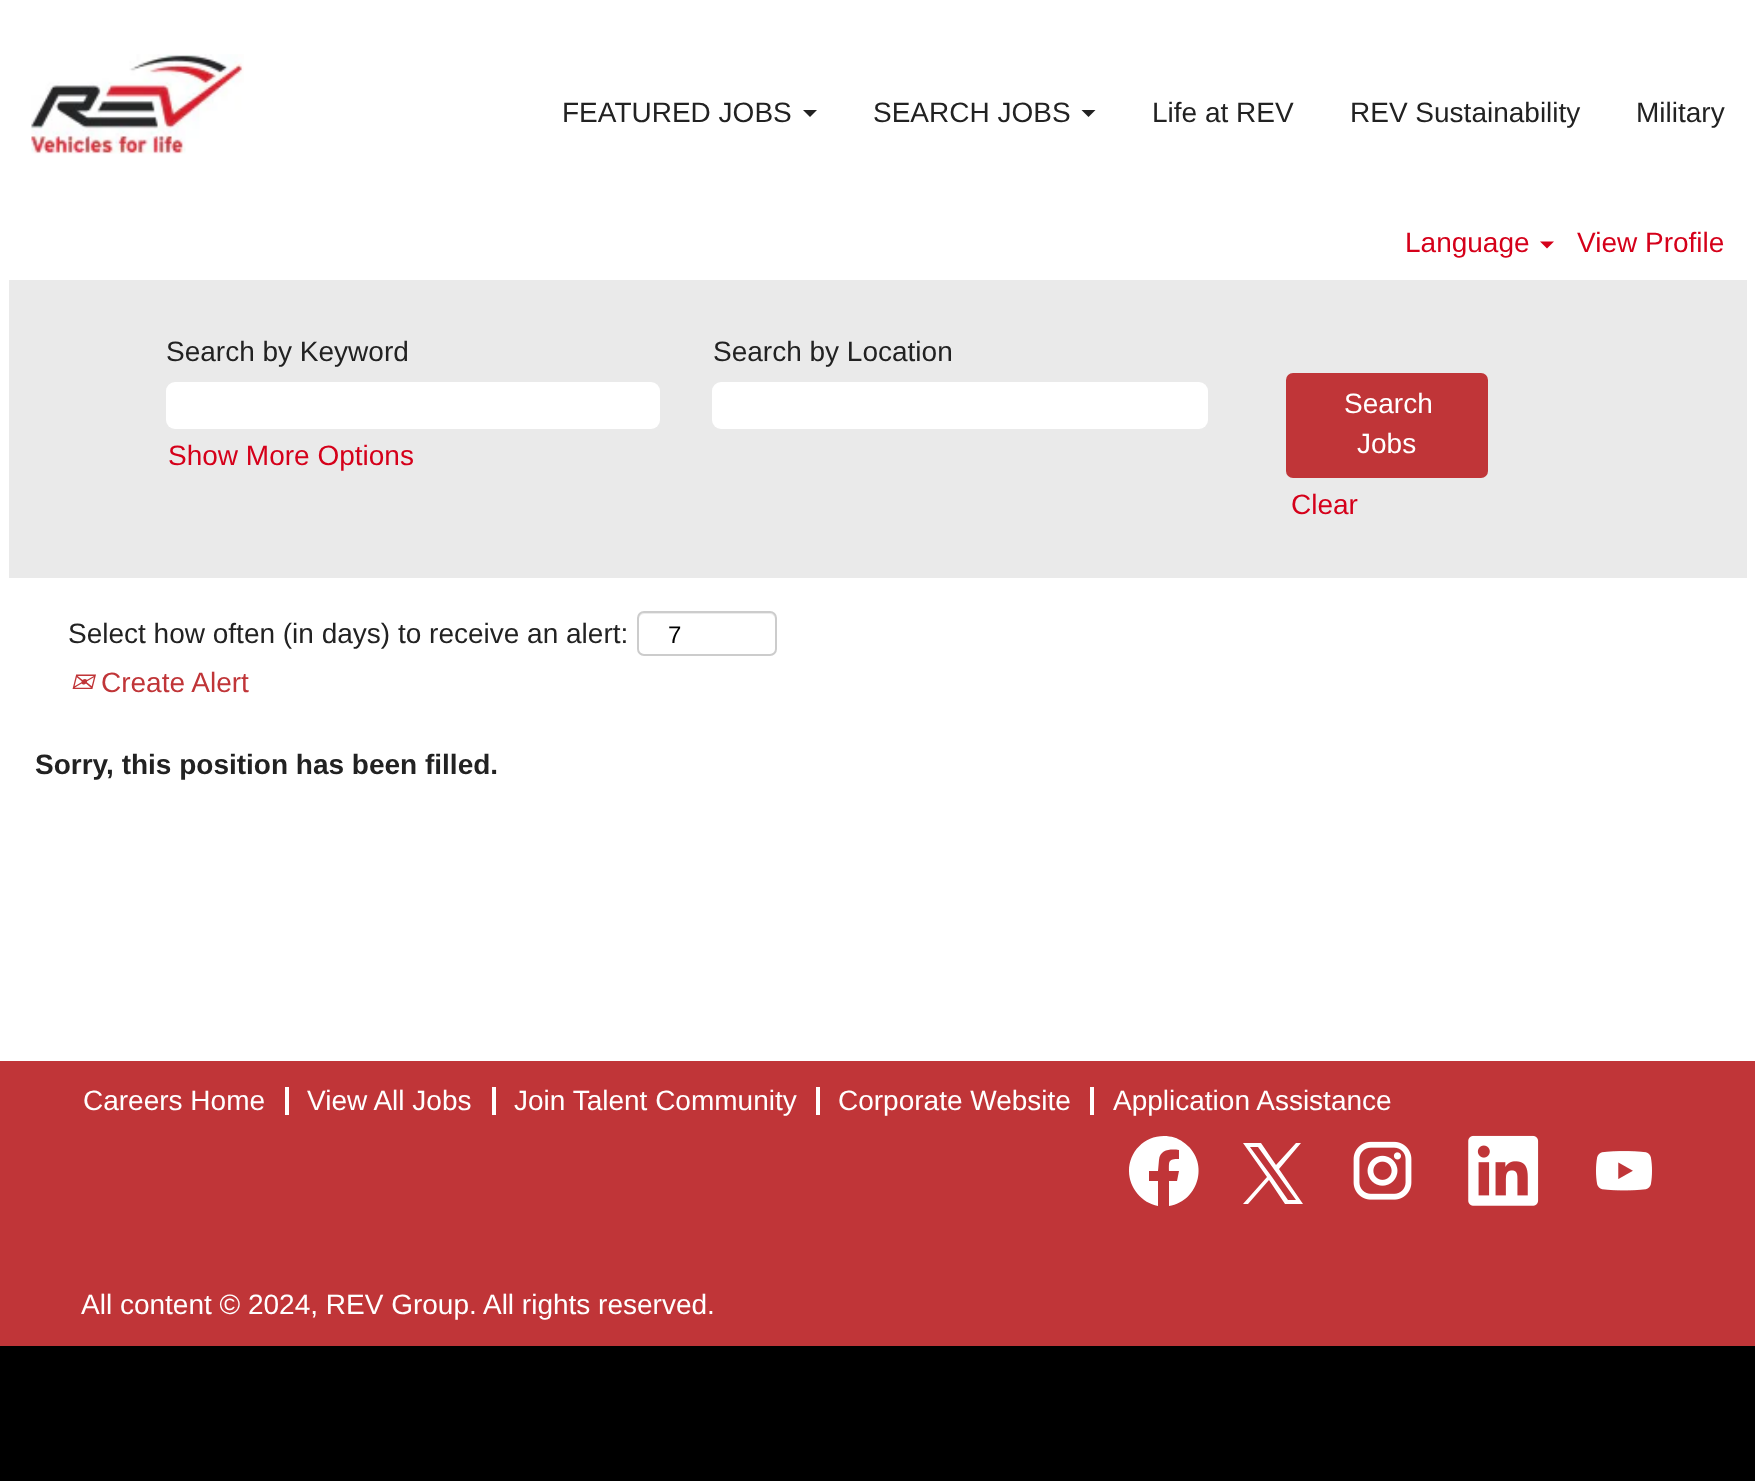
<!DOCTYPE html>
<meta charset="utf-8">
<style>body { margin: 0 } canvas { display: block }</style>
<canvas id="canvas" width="1755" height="1481"></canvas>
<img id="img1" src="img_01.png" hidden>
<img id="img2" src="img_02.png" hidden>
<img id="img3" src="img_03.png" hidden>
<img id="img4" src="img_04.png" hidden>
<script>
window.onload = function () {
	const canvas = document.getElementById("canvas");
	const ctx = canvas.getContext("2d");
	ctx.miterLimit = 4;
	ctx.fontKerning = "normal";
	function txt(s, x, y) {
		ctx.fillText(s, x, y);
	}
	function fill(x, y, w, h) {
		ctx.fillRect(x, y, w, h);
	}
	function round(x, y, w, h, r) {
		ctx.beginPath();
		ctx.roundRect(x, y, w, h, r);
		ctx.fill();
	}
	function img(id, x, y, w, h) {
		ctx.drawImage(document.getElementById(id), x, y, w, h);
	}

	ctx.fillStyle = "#000000";
	fill(0, 0, 1755, 1481);
	ctx.fillStyle = "#FFFFFF";
	fill(0, 0, 1755, 1061);
	img("img1", 31, 54, 213, 100);
	ctx.fillStyle = "#222222";
	ctx.beginPath();
	ctx.moveTo(803, 110);
	ctx.lineTo(817, 110);
	ctx.lineTo(810, 117);
	ctx.closePath();
	ctx.fill();
	ctx.beginPath();
	ctx.moveTo(1081.5, 110);
	ctx.lineTo(1095.5, 110);
	ctx.lineTo(1088.5, 117);
	ctx.closePath();
	ctx.fill();
	ctx.fillStyle = "#D5001A";
	ctx.beginPath();
	ctx.moveTo(1540, 241.5);
	ctx.lineTo(1554, 241.5);
	ctx.lineTo(1547, 248.5);
	ctx.closePath();
	ctx.fill();
	ctx.fillStyle = "#EAEAEA";
	fill(9, 280, 1738, 298);
	ctx.fillStyle = "#FFFFFF";
	round(166, 382, 494, 47, 9);
	round(712, 382, 496, 47, 9);
	ctx.fillStyle = "#C03538";
	round(1286, 373, 202, 105, 7);
	ctx.fillStyle = "#ECECEC";
	ctx.beginPath();
	ctx.moveTo(644, 614);
	ctx.lineTo(770, 614);
	ctx.bezierCurveTo(773, 614, 775, 617, 775, 620);
	ctx.lineTo(775, 618);
	ctx.bezierCurveTo(775, 615, 773, 613, 770, 613);
	ctx.lineTo(644, 613);
	ctx.bezierCurveTo(641, 613, 639, 615, 639, 618);
	ctx.lineTo(639, 620);
	ctx.bezierCurveTo(639, 617, 641, 614, 644, 614);
	ctx.closePath();
	ctx.fill();
	ctx.beginPath();
	ctx.roundRect(638, 612, 138, 43, 6);
	ctx.strokeStyle = "#CCCCCC";
	ctx.lineWidth = 2;
	ctx.stroke();
	ctx.fillStyle = "#C03538";
	fill(0, 1061, 1755, 285);
	ctx.fillStyle = "#FFFFFF";
	fill(285, 1087, 4, 28);
	fill(492, 1087, 4, 28);
	fill(816, 1087, 4, 28);
	fill(1090, 1087, 4, 28);
	ctx.beginPath();
	ctx.moveTo(1164, 1136);
	ctx.bezierCurveTo(1144, 1136, 1129, 1152, 1129, 1171);
	ctx.bezierCurveTo(1129, 1188, 1142, 1203, 1158, 1206);
	ctx.lineTo(1158, 1181);
	ctx.lineTo(1149, 1181);
	ctx.lineTo(1149, 1171);
	ctx.lineTo(1158, 1171);
	ctx.lineTo(1159, 1160);
	ctx.bezierCurveTo(1160, 1149, 1171, 1149, 1179, 1150);
	ctx.lineTo(1179, 1159);
	ctx.bezierCurveTo(1168, 1159, 1169, 1161, 1169, 1171);
	ctx.lineTo(1179, 1171);
	ctx.lineTo(1177, 1181);
	ctx.lineTo(1169, 1181);
	ctx.lineTo(1169, 1206);
	ctx.bezierCurveTo(1200, 1201, 1210, 1160, 1183, 1142);
	ctx.bezierCurveTo(1178, 1138, 1171, 1136, 1164, 1136);
	ctx.closePath();
	ctx.fill();
	ctx.beginPath();
	ctx.moveTo(1279, 1169);
	ctx.lineTo(1301, 1143);
	ctx.lineTo(1296, 1143);
	ctx.lineTo(1276, 1165);
	ctx.lineTo(1261, 1143);
	ctx.lineTo(1243, 1143);
	ctx.lineTo(1267, 1177);
	ctx.lineTo(1243, 1204);
	ctx.lineTo(1248, 1204);
	ctx.lineTo(1269, 1180);
	ctx.lineTo(1285, 1204);
	ctx.lineTo(1303, 1204);
	ctx.closePath();
	ctx.moveTo(1272, 1177);
	ctx.lineTo(1250, 1147);
	ctx.lineTo(1258, 1147);
	ctx.lineTo(1296, 1200);
	ctx.lineTo(1288, 1200);
	ctx.closePath();
	ctx.fill();
	img("img2", 1353, 1141, 59, 59);
	img("img3", 1468, 1135, 71, 71);
	img("img4", 1596, 1151, 56, 40);
	ctx.font = "28px Liberation Sans";
	ctx.fillStyle = "#222222";
	txt("FEATURED JOBS", 562, 122);
	txt("SEARCH JOBS", 873, 122);
	txt("Life at REV", 1152, 122);
	txt("REV Sustainability", 1350, 122);
	txt("Military", 1636, 122);
	ctx.fillStyle = "#D5001A";
	txt("Language", 1405, 252);
	txt("View Profile", 1577, 252);
	ctx.fillStyle = "#222222";
	txt("Search by Keyword", 166, 361);
	txt("Search by Location", 713, 361);
	ctx.fillStyle = "#D5001A";
	txt("Show More Options", 168, 465);
	ctx.fillStyle = "#FFFFFF";
	txt("Search", 1344, 413);
	txt("Jobs", 1357, 453);
	ctx.fillStyle = "#D5001A";
	txt("Clear", 1291, 514);
	ctx.fillStyle = "#222222";
	txt("Select how often (in days) to receive an alert:", 68, 643);
	ctx.font = "24px Liberation Sans";
	ctx.fillStyle = "#000000";
	txt("7", 668, 643);
	ctx.font = "italic 28px DejaVu Sans";
	ctx.fillStyle = "#C03538";
	txt("✉", 70, 692);
	ctx.font = "28px Liberation Sans";
	txt("Create Alert", 101, 692);
	ctx.font = "bold 28px Liberation Sans";
	ctx.fillStyle = "#222222";
	txt("Sorry, this position has been filled.", 35, 774);
	ctx.font = "28px Liberation Sans";
	ctx.fillStyle = "#FFFFFF";
	txt("Careers Home", 83, 1110);
	txt("View All Jobs", 307, 1110);
	txt("Join Talent Community", 514, 1110);
	txt("Corporate Website", 838, 1110);
	txt("Application Assistance", 1113, 1110);
	txt("All content © 2024, REV Group. All rights reserved.", 81, 1314);
};
</script>
